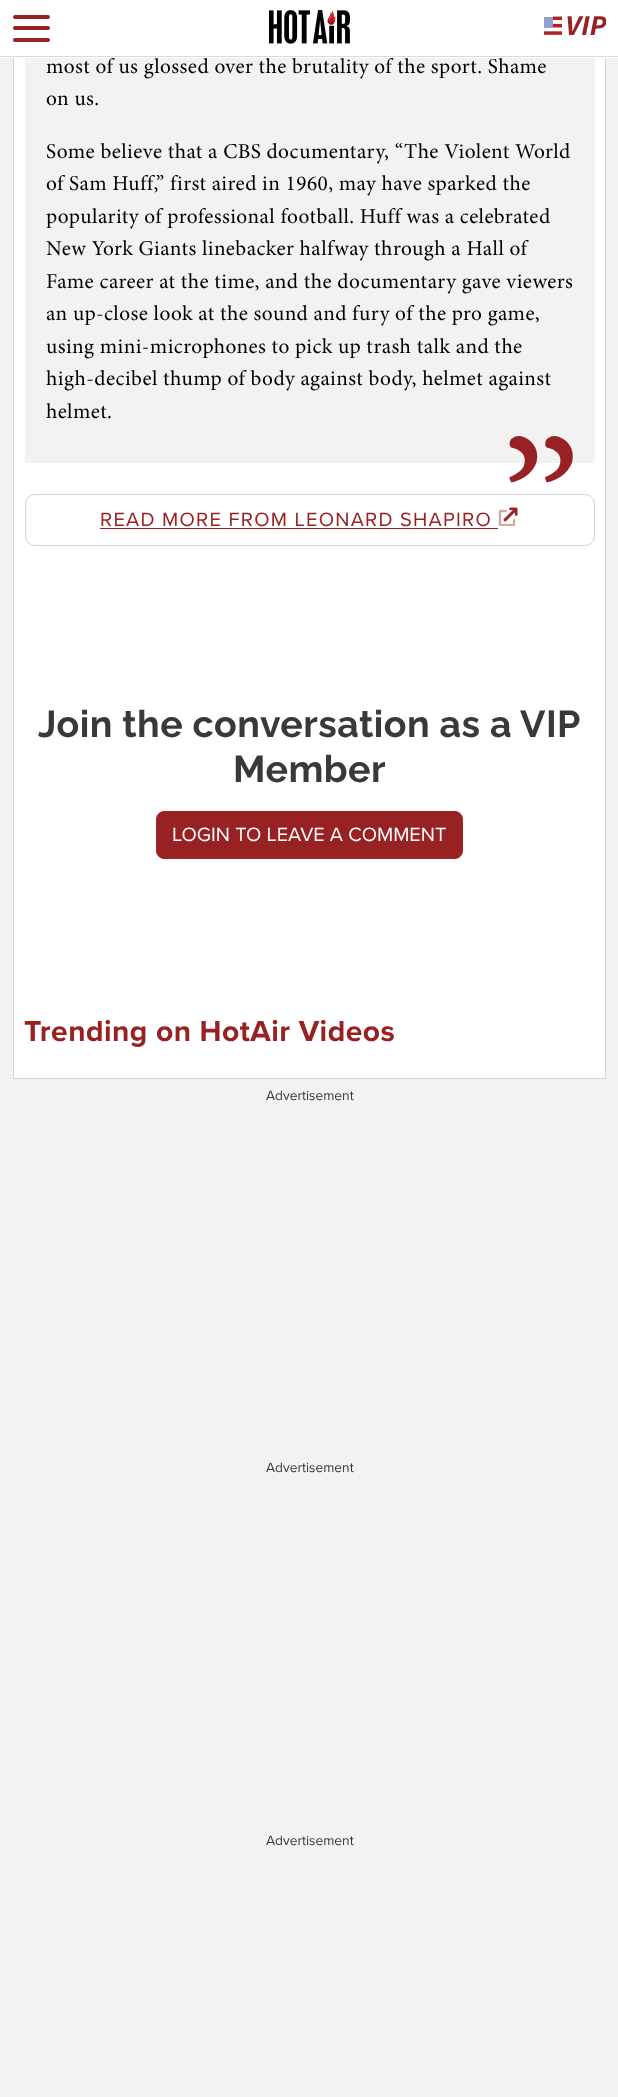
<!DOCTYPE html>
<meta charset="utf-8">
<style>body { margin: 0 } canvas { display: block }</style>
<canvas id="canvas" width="618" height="2097"></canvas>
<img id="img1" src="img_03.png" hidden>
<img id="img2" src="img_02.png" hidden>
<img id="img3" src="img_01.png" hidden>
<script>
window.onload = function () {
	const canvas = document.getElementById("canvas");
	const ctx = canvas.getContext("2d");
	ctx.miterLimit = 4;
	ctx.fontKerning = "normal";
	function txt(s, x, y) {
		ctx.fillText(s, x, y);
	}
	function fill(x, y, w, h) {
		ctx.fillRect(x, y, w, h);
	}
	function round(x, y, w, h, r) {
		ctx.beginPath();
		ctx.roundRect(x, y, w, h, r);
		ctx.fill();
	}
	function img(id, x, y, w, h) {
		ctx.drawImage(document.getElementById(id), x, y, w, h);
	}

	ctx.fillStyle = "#F2F2F2";
	fill(0, 0, 618, 2097);
	ctx.fillStyle = "#FFFFFF";
	fill(14, 58, 591, 1020);
	ctx.strokeStyle = "#D5D5D5";
	ctx.strokeRect(13.5, -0.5, 592, 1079);
	ctx.fillStyle = "#F2F2F2";
	fill(25, 58, 570, 405);
	ctx.beginPath();
	ctx.roundRect(25.5, 494.5, 569, 51, 9.5);
	ctx.stroke();
	ctx.fillStyle = "#972123";
	fill(100, 528, 398, 1);
	img("img1", 498, 507, 20, 19);
	ctx.beginPath();
	ctx.roundRect(156.5, 811.5, 306, 47, 7.5);
	ctx.fill();
	ctx.strokeStyle = "#A82527";
	ctx.stroke();
	ctx.letterSpacing = "0.45px";
	ctx.font = "21.25px Minion";
	ctx.fillStyle = "#000000";
	txt("most of us glossed over the brutality of the sport. Shame", 46, 73);
	ctx.fillStyle = "#FFFFFF";
	fill(0, 0, 618, 58);
	ctx.fillStyle = "#972123";
	round(13, 15, 37, 4, 2);
	round(13, 26, 37, 4, 2);
	round(13, 38, 37, 4, 2);
	img("img2", 544, 16, 62, 19);
	img("img3", 269, 10, 81, 34);
	ctx.fillStyle = "#DADADA";
	fill(0, 56, 618, 1);
	ctx.fillStyle = "#000000";
	txt("on us.", 46, 105);
	txt("Some believe that a CBS documentary, “The Violent World", 46, 158);
	txt("of Sam Huff,” first aired in 1960, may have sparked the", 46, 190);
	txt("popularity of professional football. Huff was a celebrated", 46, 223);
	txt("New York Giants linebacker halfway through a Hall of", 46, 255);
	txt("Fame career at the time, and the documentary gave viewers", 46, 288);
	txt("an up-close look at the sound and fury of the pro game,", 46, 320);
	txt("using mini-microphones to pick up trash talk and the", 46, 353);
	txt("high-decibel thump of body against body, helmet against", 46, 385);
	txt("helmet.", 46, 418);
	ctx.font = "200px Minion";
	ctx.fillStyle = "#972123";
	txt("”", 501, 578);
	ctx.letterSpacing = "1.25px";
	ctx.font = "20px Proxima Nova";
	txt("READ MORE FROM LEONARD SHAPIRO", 100, 526);
	ctx.letterSpacing = "0.45px";
	ctx.font = "bold 37.5px Raleway";
	ctx.fillStyle = "#393939";
	txt("Join the conversation as a VIP", 38, 737);
	txt("Member", 233, 782);
	ctx.letterSpacing = "0px";
	ctx.font = "20px Proxima Nova";
	ctx.fillStyle = "#FFFFFF";
	txt("LOGIN TO LEAVE A COMMENT", 172, 841);
	ctx.letterSpacing = "0.45px";
	ctx.font = "bold 30px Proxima Nova";
	ctx.fillStyle = "#972123";
	txt("Trending on HotAir Videos", 24, 1041);
	ctx.letterSpacing = "0px";
	ctx.font = "13.75px Proxima Nova";
	ctx.fillStyle = "#393939";
	txt("Advertisement", 266, 1100);
	txt("Advertisement", 266, 1472);
	txt("Advertisement", 266, 1845);
};
</script>
